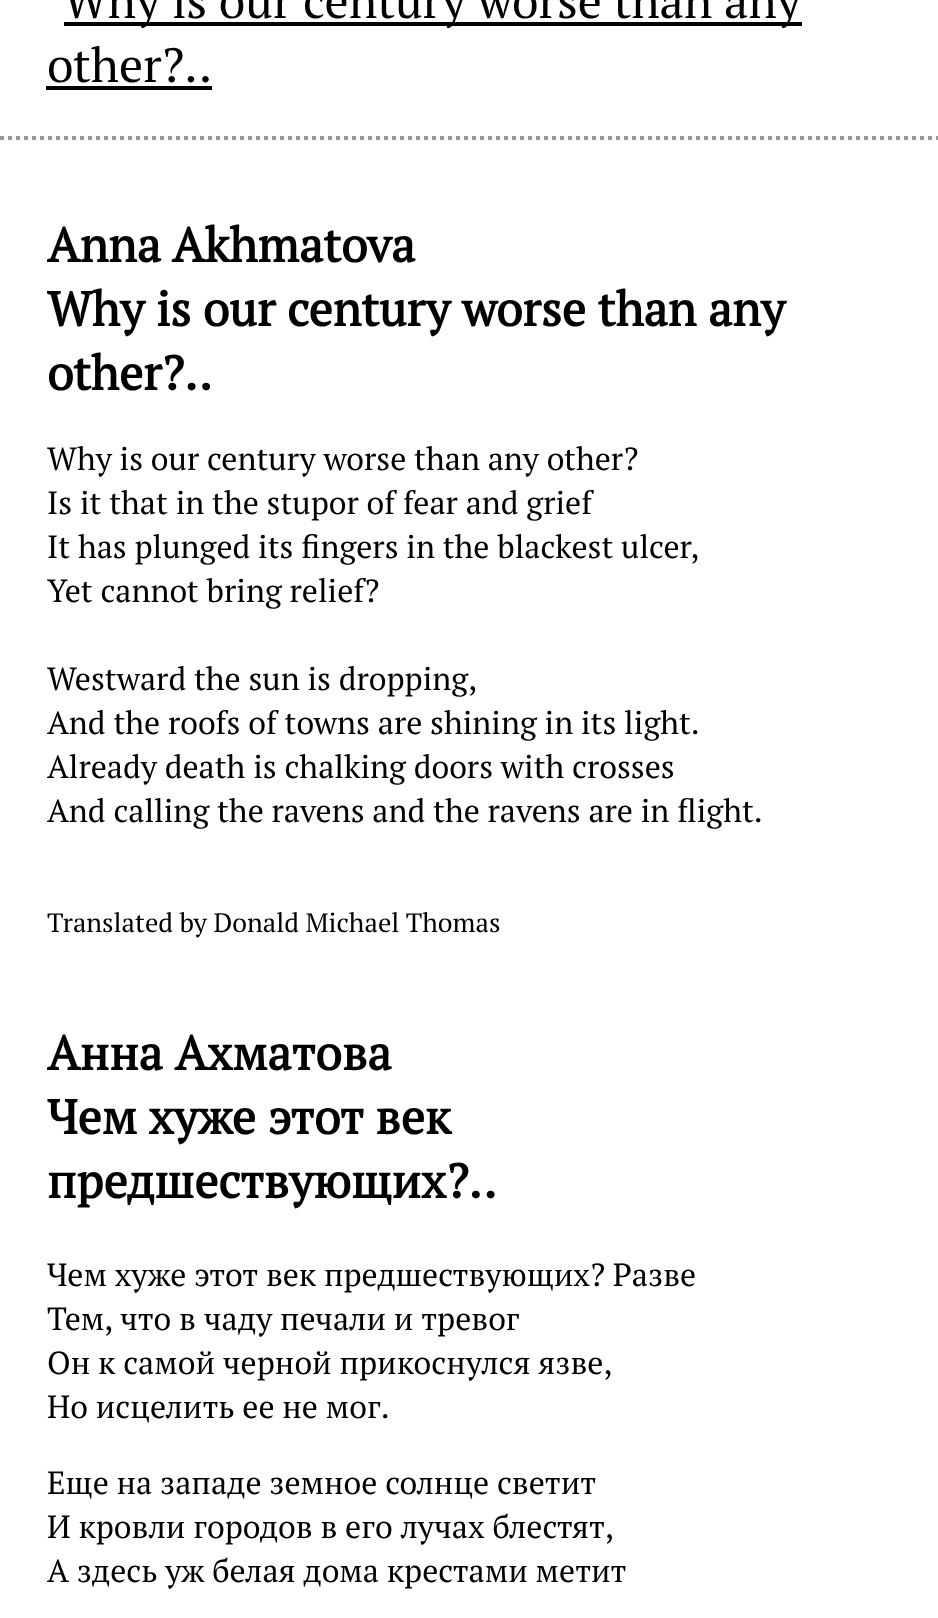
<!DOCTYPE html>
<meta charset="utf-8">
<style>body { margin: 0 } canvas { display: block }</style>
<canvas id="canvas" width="938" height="1618"></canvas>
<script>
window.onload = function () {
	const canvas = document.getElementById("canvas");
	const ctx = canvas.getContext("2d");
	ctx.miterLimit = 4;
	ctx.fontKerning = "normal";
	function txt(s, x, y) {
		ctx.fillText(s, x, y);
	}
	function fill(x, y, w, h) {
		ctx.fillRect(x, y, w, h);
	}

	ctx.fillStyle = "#FFFFFF";
	fill(0, 0, 938, 1618);
	ctx.beginPath();
	ctx.moveTo(0, 138);
	ctx.lineTo(938, 138);
	ctx.strokeStyle = "#999999";
	ctx.lineWidth = 4;
	ctx.setLineDash([4, 4]);
	ctx.stroke();
	ctx.fillStyle = "#000000";
	fill(64, 22, 738, 4);
	fill(46, 86, 166, 4);
	ctx.font = "48px PT Serif";
	txt("Why is our century worse than any", 63, 18);
	txt("other?..", 47, 82);
	ctx.font = "bold 48px PT Serif";
	txt("Anna Akhmatova", 47, 262);
	txt("Why is our century worse than any", 47, 326);
	txt("other?..", 47, 390);
	ctx.font = "32px PT Serif";
	txt("Why is our century worse than any other?", 47, 470);
	txt("Is it that in the stupor of fear and grief", 47, 514);
	txt("It has plunged its fingers in the blackest ulcer,", 47, 558);
	txt("Yet cannot bring relief?", 47, 602);
	txt("Westward the sun is dropping,", 47, 690);
	txt("And the roofs of towns are shining in its light.", 47, 734);
	txt("Already death is chalking doors with crosses", 47, 778);
	txt("And calling the ravens and the ravens are in flight.", 47, 822);
	ctx.font = "26.6px PT Serif";
	txt("Translated by Donald Michael Thomas", 47, 932);
	ctx.font = "bold 48px PT Serif";
	txt("Анна Ахматова", 47, 1070);
	txt("Чем хуже этот век", 47, 1134);
	txt("предшествующих?..", 47, 1198);
	ctx.font = "32px PT Serif";
	txt("Чем хуже этот век предшествующих? Разве", 47, 1286);
	txt("Тем, что в чаду печали и тревог", 47, 1330);
	txt("Он к самой черной прикоснулся язве,", 47, 1374);
	txt("Но исцелить ее не мог.", 47, 1418);
	txt("Еще на западе земное солнце светит", 47, 1494);
	txt("И кровли городов в его лучах блестят,", 47, 1538);
	txt("А здесь уж белая дома крестами метит", 47, 1582);
};
</script>
